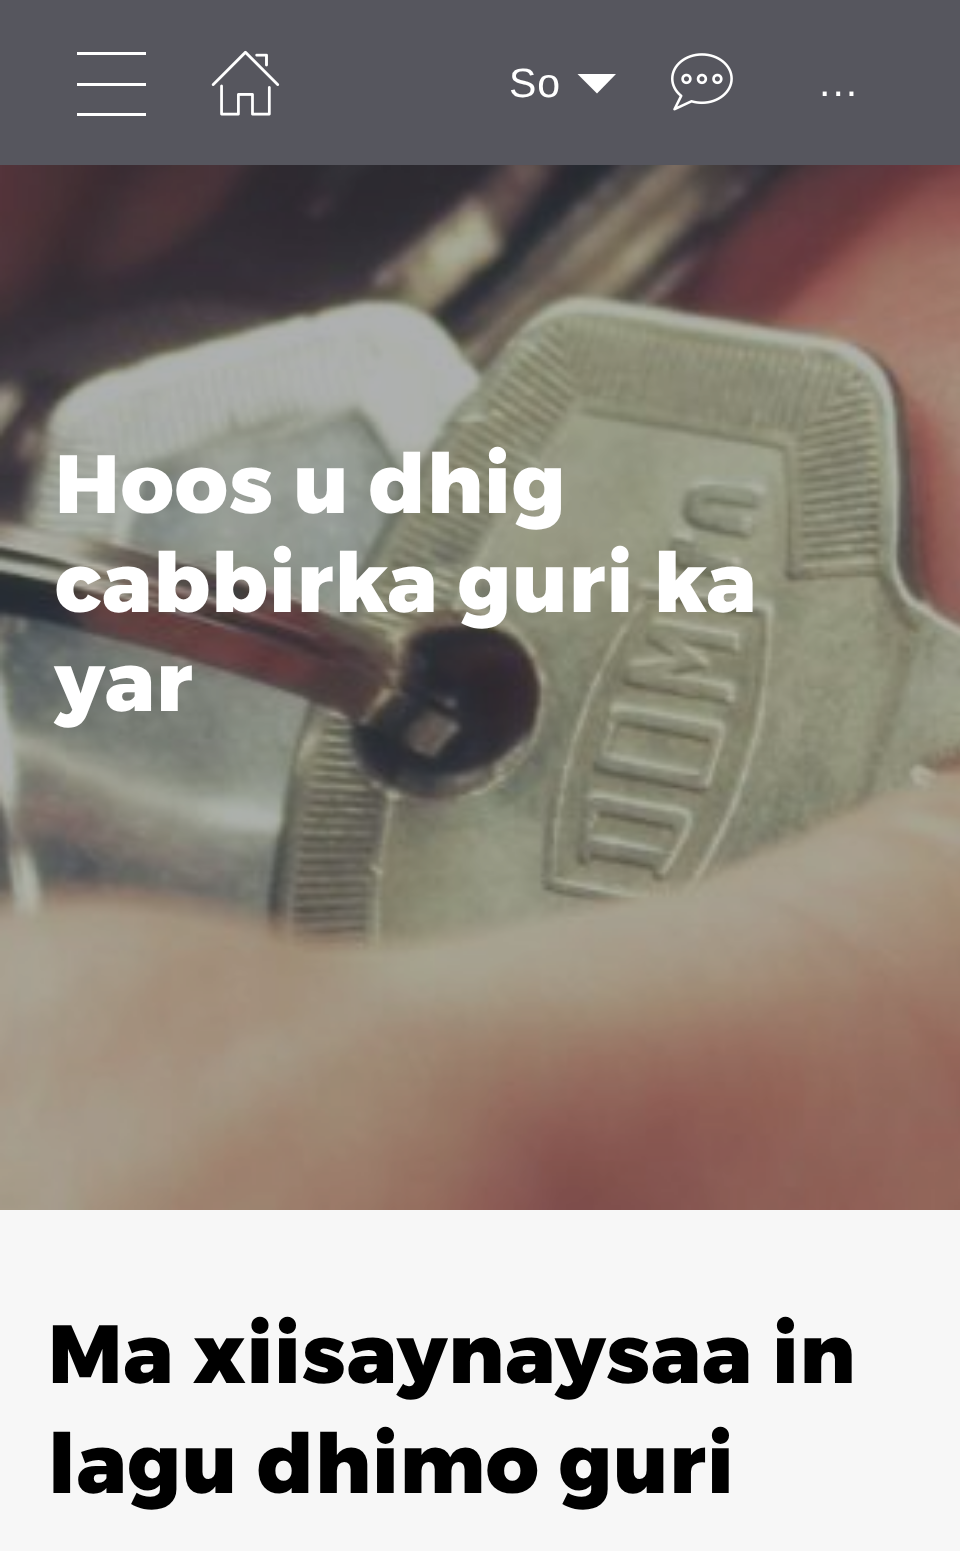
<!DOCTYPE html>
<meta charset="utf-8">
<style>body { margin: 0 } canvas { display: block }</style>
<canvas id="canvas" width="960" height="1551"></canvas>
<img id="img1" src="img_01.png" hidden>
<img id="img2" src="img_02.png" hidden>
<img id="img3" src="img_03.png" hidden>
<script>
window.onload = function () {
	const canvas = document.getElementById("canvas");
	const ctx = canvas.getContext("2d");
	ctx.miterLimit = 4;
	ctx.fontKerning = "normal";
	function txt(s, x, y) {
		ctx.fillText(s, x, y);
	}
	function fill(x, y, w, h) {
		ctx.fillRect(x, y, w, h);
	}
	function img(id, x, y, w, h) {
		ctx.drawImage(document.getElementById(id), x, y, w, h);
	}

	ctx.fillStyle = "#F7F7F7";
	fill(0, 0, 960, 1551);
	ctx.fillStyle = "#56565E";
	fill(0, 0, 960, 165);
	ctx.fillStyle = "#FFFFFF";
	fill(77, 83, 69, 3);
	fill(77, 52, 69, 3);
	fill(77, 113, 69, 3);
	img("img1", 211, 50, 69, 66);
	ctx.beginPath();
	ctx.moveTo(577.5, 74);
	ctx.lineTo(616, 74);
	ctx.lineTo(597, 93.5);
	ctx.closePath();
	ctx.fill();
	img("img2", 671, 53, 62, 58);
	img("img3", 0, 165, 960, 1045);
	ctx.letterSpacing = "0.9px";
	ctx.font = "41px Liberation Sans";
	txt("So", 509, 97);
	ctx.letterSpacing = "2px";
	txt("...", 819, 96);
	ctx.letterSpacing = "1.1px";
	ctx.font = "800 82.5px Montserrat";
	txt("Hoos u dhig", 55, 513);
	txt("cabbirka guri ka", 55, 612);
	txt("yar", 55, 711);
	ctx.letterSpacing = "0.9px";
	ctx.fillStyle = "#000000";
	txt("Ma xiisaynaysaa in", 48, 1383);
	txt("lagu dhimo guri", 48, 1493);
};
</script>
